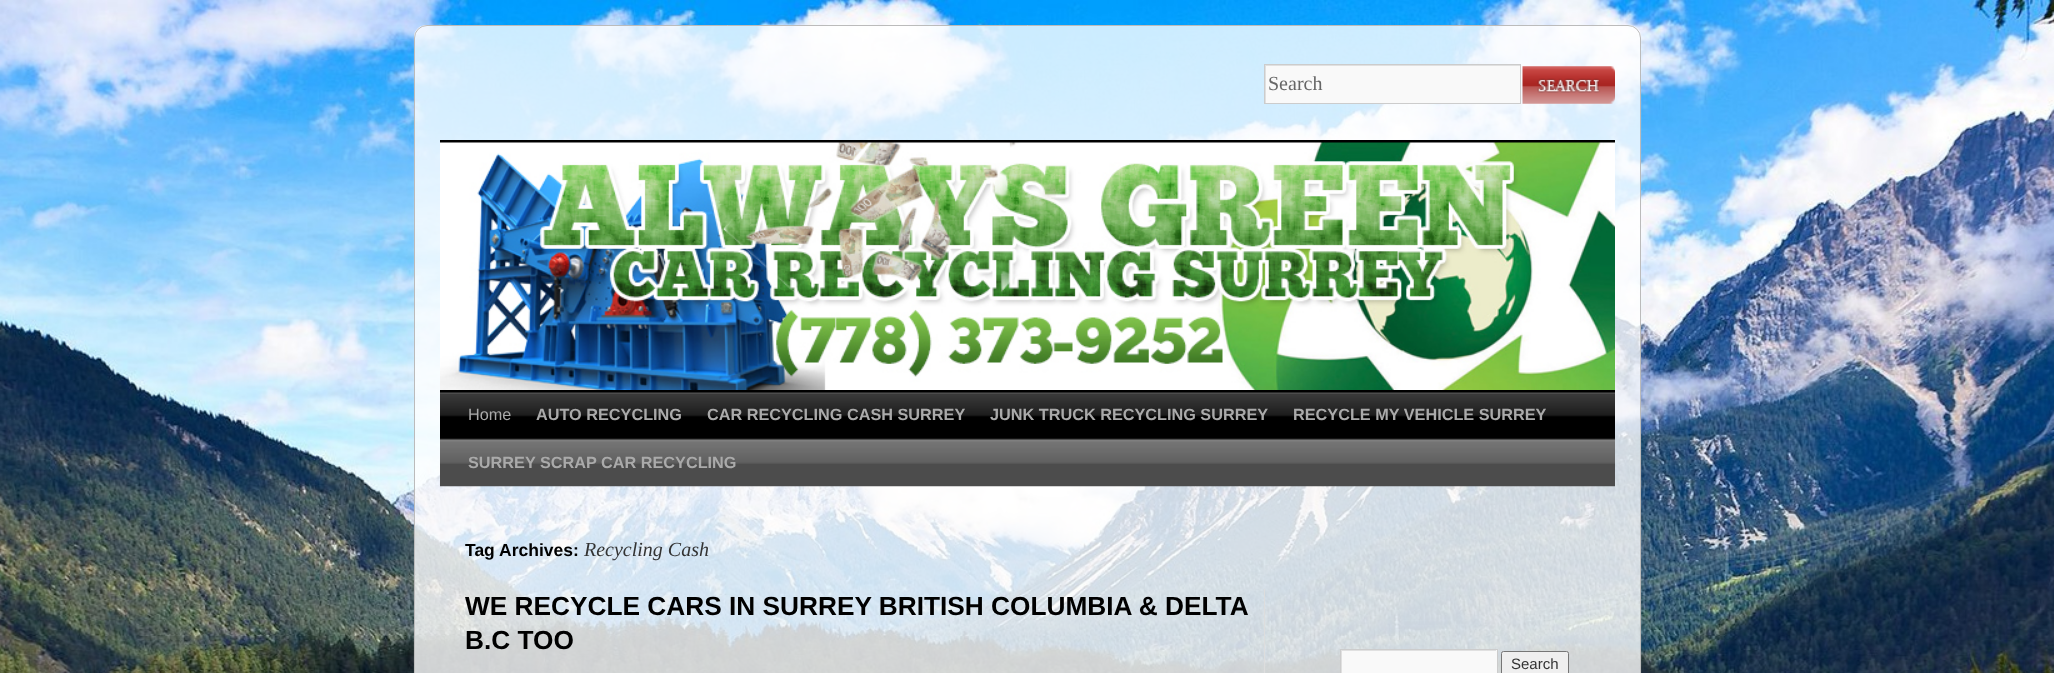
<!DOCTYPE html>
<meta charset="utf-8">
<style>body { margin: 0 } canvas { display: block }</style>
<canvas id="canvas" width="2054" height="673"></canvas>
<img id="img1" src="img_01.png" hidden>
<img id="img2" src="img_02.png" hidden>
<img id="img3" src="img_03.png" hidden>
<img id="img4" src="img_04.png" hidden>
<img id="img5" src="img_05.png" hidden>
<script>
window.onload = function () {
	const canvas = document.getElementById("canvas");
	const ctx = canvas.getContext("2d");
	ctx.miterLimit = 4;
	ctx.fontKerning = "normal";
	function txt(s, x, y) {
		ctx.fillText(s, x, y);
	}
	function fill(x, y, w, h) {
		ctx.fillRect(x, y, w, h);
	}
	function img(id, x, y, w, h) {
		ctx.drawImage(document.getElementById(id), x, y, w, h);
	}

	ctx.fillStyle = "#FFFFFF";
	fill(0, 0, 2054, 673);
	img("img1", 0, 0, 2054, 673);
	img("img2", 413, 25, 1229, 648);
	ctx.beginPath();
	ctx.roundRect(414.5, 25.5, 1226, 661, 12.5);
	ctx.strokeStyle = "#BBBBBB";
	ctx.stroke();
	ctx.fillStyle = "#F9F9F9";
	fill(1266, 66, 254, 37);
	ctx.save();
	ctx.beginPath();
	ctx.rect(1265, 65, 255, 38);
	ctx.clip();
	ctx.fillStyle = "#E0E0E0";
	ctx.beginPath();
	ctx.moveTo(1141, -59);
	ctx.lineTo(1644, -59);
	ctx.lineTo(1644, 226);
	ctx.lineTo(1141, 226);
	ctx.closePath();
	ctx.moveTo(1266, 66);
	ctx.lineTo(1521, 66);
	ctx.lineTo(1521, 104);
	ctx.lineTo(1266, 104);
	ctx.closePath();
	ctx.fill("evenodd");
	ctx.restore();
	ctx.strokeStyle = "#CCCCCC";
	ctx.strokeRect(1264.5, 64.5, 256, 39);
	img("img3", 1522, 66, 93, 38);
	ctx.fillStyle = "#000000";
	fill(440, 140, 1175, 3);
	fill(440, 390, 1175, 2);
	img("img4", 440, 142, 1175, 248);
	img("img5", 440, 392, 1175, 95);
	ctx.fillStyle = "#DDDDDD";
	fill(1264, 589, 1, 84);
	ctx.fillStyle = "#F9F9F9";
	fill(1342, 650, 155, 23);
	ctx.save();
	ctx.beginPath();
	ctx.rect(1341, 650, 155, 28);
	ctx.clip();
	ctx.fillStyle = "#E0E0E0";
	ctx.beginPath();
	ctx.moveTo(1218, 526);
	ctx.lineTo(1620, 526);
	ctx.lineTo(1620, 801);
	ctx.lineTo(1218, 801);
	ctx.closePath();
	ctx.moveTo(1342, 651);
	ctx.lineTo(1498, 651);
	ctx.lineTo(1498, 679);
	ctx.lineTo(1342, 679);
	ctx.closePath();
	ctx.fill("evenodd");
	ctx.restore();
	ctx.strokeRect(1340.5, 649.5, 157, 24);
	ctx.fillStyle = "#EFEFEF";
	ctx.beginPath();
	ctx.roundRect(1501.5, 651.5, 67, 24, 2);
	ctx.fill();
	ctx.strokeStyle = "#767676";
	ctx.stroke();
	ctx.font = "20px Liberation Serif";
	ctx.fillStyle = "#666666";
	txt("Search", 1268, 90);
	ctx.font = "16.25px Liberation Sans";
	ctx.fillStyle = "#AAAAAA";
	txt("Home", 468, 420);
	ctx.font = "bold 16.25px Liberation Sans";
	txt("AUTO RECYCLING", 536, 420);
	txt("CAR RECYCLING CASH SURREY", 707, 420);
	txt("JUNK TRUCK RECYCLING SURREY", 990, 420);
	txt("RECYCLE MY VEHICLE SURREY", 1293, 420);
	txt("SURREY SCRAP CAR RECYCLING", 468, 468);
	ctx.font = "bold 17.5px Liberation Sans";
	ctx.fillStyle = "#000000";
	txt("Tag Archives:", 465, 556);
	ctx.font = "italic 20px Liberation Serif";
	ctx.fillStyle = "#333333";
	txt("Recycling Cash", 584, 556);
	ctx.font = "bold 26.25px Liberation Sans";
	ctx.fillStyle = "#000000";
	txt("WE RECYCLE CARS IN SURREY BRITISH COLUMBIA & DELTA", 465, 615);
	txt("B.C TOO", 465, 649);
	ctx.font = "15px Liberation Sans";
	ctx.fillStyle = "#333333";
	txt("Search", 1511, 669);
};
</script>
